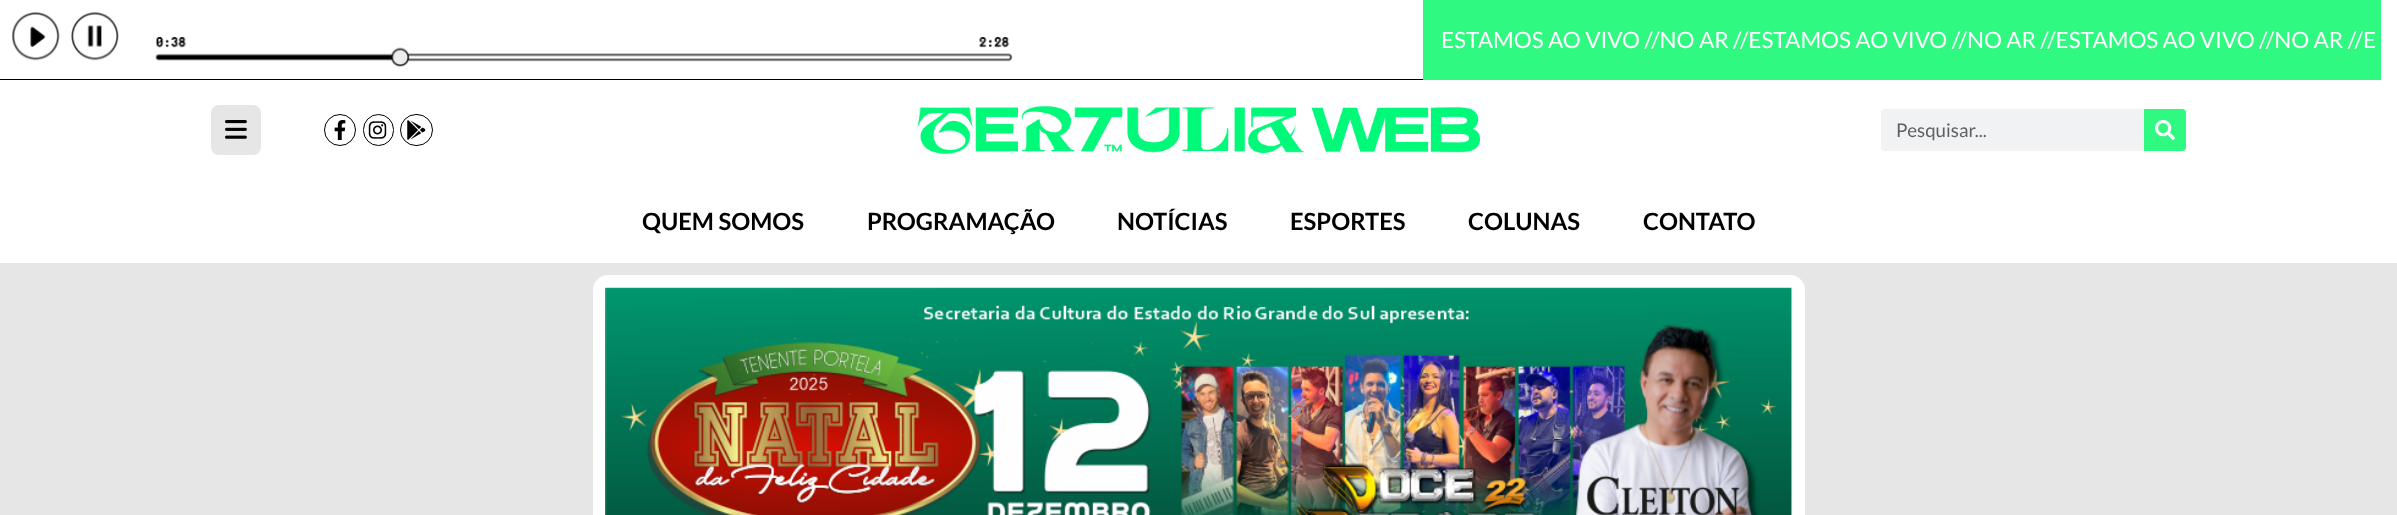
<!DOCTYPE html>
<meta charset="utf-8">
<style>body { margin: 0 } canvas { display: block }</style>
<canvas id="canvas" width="2397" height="515"></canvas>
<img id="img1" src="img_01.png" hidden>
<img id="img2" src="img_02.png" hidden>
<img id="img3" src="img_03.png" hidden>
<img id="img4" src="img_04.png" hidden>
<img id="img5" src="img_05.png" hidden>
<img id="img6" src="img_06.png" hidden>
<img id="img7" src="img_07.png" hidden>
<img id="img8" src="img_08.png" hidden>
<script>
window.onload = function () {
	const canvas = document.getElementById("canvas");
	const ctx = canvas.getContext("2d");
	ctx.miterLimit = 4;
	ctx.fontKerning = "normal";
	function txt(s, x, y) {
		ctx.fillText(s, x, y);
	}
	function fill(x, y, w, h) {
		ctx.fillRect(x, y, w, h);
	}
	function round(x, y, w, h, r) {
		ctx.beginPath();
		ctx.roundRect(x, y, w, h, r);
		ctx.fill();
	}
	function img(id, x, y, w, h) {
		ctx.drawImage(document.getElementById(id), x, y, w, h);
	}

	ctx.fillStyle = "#FFFFFF";
	fill(0, 0, 2397, 515);
	ctx.fillStyle = "#000000";
	fill(0, 79, 1423, 1);
	img("img1", 12, 12, 1001, 55);
	ctx.fillStyle = "#30F981";
	fill(1423, 0, 958, 80);
	ctx.fillStyle = "#E6E6E6";
	round(211, 105, 50, 50, 8);
	img("img2", 225, 120, 22, 19);
	ctx.beginPath();
	ctx.arc(340, 130, 15.5, 0, Math.PI * 2);
	ctx.strokeStyle = "#000000";
	ctx.stroke();
	img("img3", 334, 120, 12, 20);
	ctx.beginPath();
	ctx.roundRect(363.5, 114.5, 30, 31, 15);
	ctx.stroke();
	img("img4", 368, 121, 19, 18);
	ctx.beginPath();
	ctx.roundRect(400.5, 114.5, 32, 31, 15.5);
	ctx.stroke();
	img("img5", 407, 120, 19, 20);
	img("img6", 917, 106, 563, 48);
	ctx.fillStyle = "#F1F2F3";
	round(1881, 109, 305, 42, 4);
	ctx.fillStyle = "#30F981";
	ctx.beginPath();
	ctx.roundRect(2144, 109, 42, 42, [0, 4, 4, 0]);
	ctx.fill();
	img("img7", 2155, 120, 20, 20);
	ctx.fillStyle = "#E6E6E6";
	fill(0, 263, 2397, 252);
	ctx.fillStyle = "#FFFFFF";
	round(593, 275, 1212, 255, 15);
	img("img8", 605, 287, 1188, 228);
	ctx.font = "22.5px Lato";
	txt("ESTAMOS AO VIVO //NO AR //ESTAMOS AO VIVO //NO AR //ESTAMOS AO VIVO //NO AR //E", 1441, 48);
	ctx.font = "18.75px Lato";
	ctx.fillStyle = "#606161";
	txt("Pesquisar...", 1896, 137);
	ctx.font = "bold 23.75px Lato";
	ctx.fillStyle = "#000000";
	txt("QUEM SOMOS", 642, 230);
	txt("PROGRAMAÇÃO", 867, 230);
	txt("NOTÍCIAS", 1117, 230);
	txt("ESPORTES", 1290, 230);
	txt("COLUNAS", 1468, 230);
	txt("CONTATO", 1643, 230);
};
</script>
